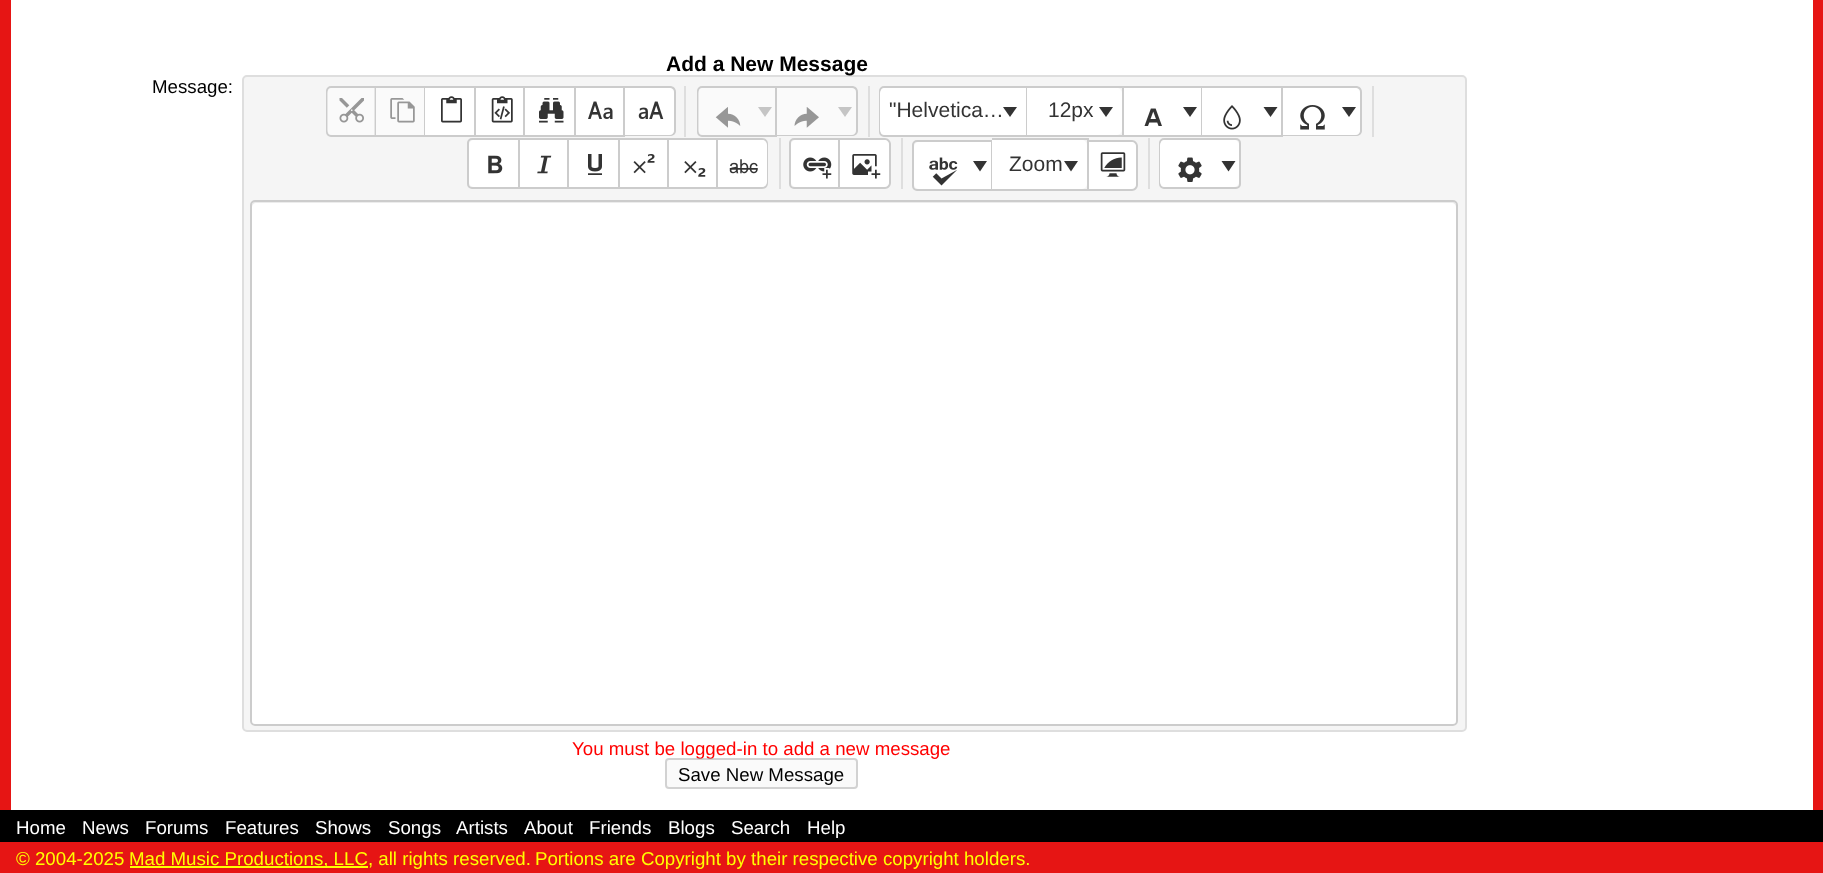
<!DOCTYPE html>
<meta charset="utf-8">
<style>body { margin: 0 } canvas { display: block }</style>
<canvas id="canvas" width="1823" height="873"></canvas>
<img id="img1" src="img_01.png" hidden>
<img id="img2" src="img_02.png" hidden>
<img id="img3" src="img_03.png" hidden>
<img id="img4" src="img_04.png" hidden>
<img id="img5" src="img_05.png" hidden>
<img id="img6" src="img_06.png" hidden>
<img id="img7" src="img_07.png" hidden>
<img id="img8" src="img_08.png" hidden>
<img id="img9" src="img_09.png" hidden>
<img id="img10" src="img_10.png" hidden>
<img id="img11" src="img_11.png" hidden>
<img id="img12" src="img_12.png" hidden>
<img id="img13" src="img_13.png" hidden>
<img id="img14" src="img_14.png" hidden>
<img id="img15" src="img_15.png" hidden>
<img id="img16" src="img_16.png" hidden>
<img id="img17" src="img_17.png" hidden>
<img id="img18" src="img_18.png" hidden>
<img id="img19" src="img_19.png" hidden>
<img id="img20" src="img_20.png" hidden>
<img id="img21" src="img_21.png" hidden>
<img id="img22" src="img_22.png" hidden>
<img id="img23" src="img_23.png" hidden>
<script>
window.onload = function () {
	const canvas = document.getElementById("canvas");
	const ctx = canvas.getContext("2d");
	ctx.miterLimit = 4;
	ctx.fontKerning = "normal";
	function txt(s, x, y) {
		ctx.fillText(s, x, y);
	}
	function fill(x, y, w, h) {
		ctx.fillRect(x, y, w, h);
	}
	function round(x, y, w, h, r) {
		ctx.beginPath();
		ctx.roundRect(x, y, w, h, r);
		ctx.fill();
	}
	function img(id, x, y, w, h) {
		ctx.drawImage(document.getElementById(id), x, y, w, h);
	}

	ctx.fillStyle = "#FFFFFF";
	fill(0, 0, 1823, 873);
	ctx.fillStyle = "#E61514";
	fill(0, 0, 11, 810);
	ctx.fillStyle = "#F5F5F5";
	ctx.beginPath();
	ctx.roundRect(243, 76, 1223, 655, 4);
	ctx.fill();
	ctx.strokeStyle = "#DEDEDE";
	ctx.lineWidth = 2;
	ctx.stroke();
	ctx.beginPath();
	ctx.roundRect(327, 87, 48, 49, [4, 0, 0, 4]);
	ctx.strokeStyle = "#CCCCCC";
	ctx.stroke();
	ctx.fillStyle = "rgba(255, 255, 255, 0.5)";
	ctx.beginPath();
	ctx.roundRect(327, 88, 48, 47, [5, 0, 0, 5]);
	ctx.fill();
	img("img1", 339, 98, 25, 25);
	ctx.fillStyle = "#CCCCCC";
	fill(376, 86, 249, 2);
	fill(424, 86, 1, 51);
	fill(376, 135, 49, 2);
	ctx.fillStyle = "#FAFAFA";
	fill(376, 88, 48, 47);
	img("img2", 390, 98, 25, 25);
	ctx.fillStyle = "#CCCCCC";
	fill(474, 86, 2, 51);
	fill(425, 135, 51, 2);
	ctx.fillStyle = "#FFFFFF";
	fill(425, 88, 49, 47);
	img("img3", 441, 96, 21, 27);
	ctx.fillStyle = "#CCCCCC";
	fill(523, 86, 2, 51);
	fill(476, 135, 49, 2);
	ctx.fillStyle = "#FFFFFF";
	fill(476, 88, 47, 47);
	img("img4", 491, 96, 22, 27);
	ctx.fillStyle = "#CCCCCC";
	fill(574, 86, 2, 51);
	fill(525, 135, 51, 2);
	ctx.fillStyle = "#FFFFFF";
	fill(525, 88, 49, 47);
	img("img5", 539, 98, 25, 25);
	ctx.fillStyle = "#CCCCCC";
	fill(623, 86, 2, 51);
	fill(576, 135, 49, 2);
	ctx.fillStyle = "#FFFFFF";
	fill(576, 88, 47, 47);
	img("img6", 588, 101, 25, 18);
	ctx.fillStyle = "#CCCCCC";
	ctx.beginPath();
	ctx.moveTo(625, 86);
	ctx.lineTo(670, 86);
	ctx.bezierCurveTo(673, 86, 676, 88, 676, 92);
	ctx.lineTo(676, 131);
	ctx.bezierCurveTo(676, 134, 673, 136, 670, 136);
	ctx.lineTo(625, 136);
	ctx.closePath();
	ctx.moveTo(625, 88);
	ctx.lineTo(670, 88);
	ctx.bezierCurveTo(672, 88, 674, 89, 674, 92);
	ctx.lineTo(674, 131);
	ctx.bezierCurveTo(674, 133, 672, 135, 670, 135);
	ctx.lineTo(625, 135);
	ctx.closePath();
	ctx.fill("evenodd");
	ctx.fillStyle = "#FFFFFF";
	ctx.beginPath();
	ctx.roundRect(625, 88, 49, 47, [0, 5, 5, 0]);
	ctx.fill();
	img("img7", 638, 101, 26, 18);
	ctx.fillStyle = "#DEDEDE";
	fill(684, 86, 2, 51);
	ctx.beginPath();
	ctx.roundRect(698, 87, 78, 49, [4, 0, 0, 4]);
	ctx.stroke();
	ctx.fillStyle = "rgba(255, 255, 255, 0.5)";
	ctx.beginPath();
	ctx.roundRect(698, 88, 77, 47, [5, 0, 0, 5]);
	ctx.fill();
	img("img8", 715, 107, 26, 21);
	ctx.fillStyle = "#C5C5C5";
	ctx.beginPath();
	ctx.moveTo(765, 117);
	ctx.lineTo(758, 107);
	ctx.lineTo(772, 107);
	ctx.closePath();
	ctx.fill();
	ctx.fillStyle = "#CCCCCC";
	ctx.beginPath();
	ctx.moveTo(777, 86);
	ctx.lineTo(852, 86);
	ctx.bezierCurveTo(855, 86, 858, 88, 858, 92);
	ctx.lineTo(858, 131);
	ctx.bezierCurveTo(858, 134, 855, 136, 852, 136);
	ctx.lineTo(777, 136);
	ctx.closePath();
	ctx.moveTo(777, 88);
	ctx.lineTo(852, 88);
	ctx.bezierCurveTo(854, 88, 856, 89, 856, 92);
	ctx.lineTo(856, 131);
	ctx.bezierCurveTo(856, 133, 854, 135, 852, 135);
	ctx.lineTo(777, 135);
	ctx.closePath();
	ctx.fill("evenodd");
	ctx.fillStyle = "rgba(255, 255, 255, 0.5)";
	ctx.beginPath();
	ctx.roundRect(777, 88, 79, 47, [0, 5, 5, 0]);
	ctx.fill();
	img("img9", 794, 107, 25, 21);
	ctx.fillStyle = "#C5C5C5";
	ctx.beginPath();
	ctx.moveTo(845, 117);
	ctx.lineTo(838, 107);
	ctx.lineTo(852, 107);
	ctx.closePath();
	ctx.fill();
	ctx.fillStyle = "#DEDEDE";
	fill(868, 86, 2, 51);
	ctx.beginPath();
	ctx.roundRect(880, 87, 146, 49, [4, 0, 0, 4]);
	ctx.stroke();
	ctx.fillStyle = "#FFFFFF";
	ctx.beginPath();
	ctx.roundRect(880, 88, 146, 47, [5, 0, 0, 5]);
	ctx.fill();
	ctx.fillStyle = "#333333";
	ctx.beginPath();
	ctx.moveTo(1010, 117);
	ctx.lineTo(1003, 107);
	ctx.lineTo(1017, 107);
	ctx.closePath();
	ctx.fill();
	ctx.fillStyle = "#CCCCCC";
	fill(1027, 86, 256, 2);
	fill(1122, 86, 2, 51);
	fill(1027, 135, 97, 2);
	ctx.fillStyle = "#FFFFFF";
	ctx.beginPath();
	ctx.roundRect(1027, 88, 95, 47, [0, 5, 5, 0]);
	ctx.fill();
	ctx.fillStyle = "#333333";
	ctx.beginPath();
	ctx.moveTo(1106, 117);
	ctx.lineTo(1099, 107);
	ctx.lineTo(1113, 107);
	ctx.closePath();
	ctx.fill();
	ctx.fillStyle = "#CCCCCC";
	fill(1201, 86, 1, 51);
	fill(1124, 135, 78, 2);
	ctx.fillStyle = "#FFFFFF";
	fill(1124, 88, 77, 47);
	img("img10", 1144, 108, 18, 18);
	ctx.fillStyle = "#333333";
	ctx.beginPath();
	ctx.moveTo(1190, 117);
	ctx.lineTo(1183, 107);
	ctx.lineTo(1197, 107);
	ctx.closePath();
	ctx.fill();
	ctx.fillStyle = "#CCCCCC";
	fill(1281, 86, 2, 51);
	fill(1202, 135, 81, 2);
	ctx.fillStyle = "#FFFFFF";
	fill(1202, 88, 79, 47);
	img("img11", 1223, 105, 18, 25);
	ctx.fillStyle = "#333333";
	ctx.beginPath();
	ctx.moveTo(1270.5, 117);
	ctx.lineTo(1263.5, 107);
	ctx.lineTo(1277.5, 107);
	ctx.closePath();
	ctx.fill();
	ctx.fillStyle = "#CCCCCC";
	ctx.beginPath();
	ctx.moveTo(1283, 86);
	ctx.lineTo(1356, 86);
	ctx.bezierCurveTo(1359, 86, 1362, 88, 1362, 92);
	ctx.lineTo(1362, 131);
	ctx.bezierCurveTo(1362, 134, 1359, 136, 1356, 136);
	ctx.lineTo(1283, 136);
	ctx.closePath();
	ctx.moveTo(1283, 88);
	ctx.lineTo(1356, 88);
	ctx.bezierCurveTo(1358, 88, 1360, 89, 1360, 92);
	ctx.lineTo(1360, 131);
	ctx.bezierCurveTo(1360, 133, 1358, 135, 1356, 135);
	ctx.lineTo(1283, 135);
	ctx.closePath();
	ctx.fill("evenodd");
	ctx.fillStyle = "#FFFFFF";
	ctx.beginPath();
	ctx.roundRect(1283, 88, 77, 47, [0, 5, 5, 0]);
	ctx.fill();
	img("img12", 1300, 105, 25, 25);
	ctx.fillStyle = "#333333";
	ctx.beginPath();
	ctx.moveTo(1349, 117);
	ctx.lineTo(1342, 107);
	ctx.lineTo(1356, 107);
	ctx.closePath();
	ctx.fill();
	ctx.fillStyle = "#DEDEDE";
	fill(1372, 86, 2, 51);
	ctx.beginPath();
	ctx.roundRect(468, 139, 51, 49, [4, 0, 0, 4]);
	ctx.stroke();
	ctx.fillStyle = "#FFFFFF";
	ctx.beginPath();
	ctx.roundRect(469, 140, 49, 47, [5, 0, 0, 5]);
	ctx.fill();
	img("img13", 488, 155, 15, 19);
	ctx.fillStyle = "#CCCCCC";
	fill(520, 138, 198, 2);
	fill(567, 138, 2, 51);
	fill(520, 187, 49, 2);
	ctx.fillStyle = "#FFFFFF";
	fill(520, 140, 47, 47);
	img("img14", 537, 155, 15, 19);
	ctx.fillStyle = "#CCCCCC";
	fill(618, 138, 2, 51);
	fill(569, 187, 51, 2);
	ctx.fillStyle = "#FFFFFF";
	fill(569, 140, 49, 47);
	img("img15", 588, 154, 14, 21);
	ctx.fillStyle = "#CCCCCC";
	fill(667, 138, 2, 51);
	fill(620, 187, 49, 2);
	ctx.fillStyle = "#FFFFFF";
	fill(620, 140, 47, 47);
	img("img16", 633, 154, 22, 20);
	ctx.fillStyle = "#CCCCCC";
	fill(716, 138, 2, 51);
	fill(669, 187, 49, 2);
	ctx.fillStyle = "#FFFFFF";
	fill(669, 140, 47, 47);
	img("img17", 684, 161, 22, 16);
	ctx.fillStyle = "#CCCCCC";
	ctx.beginPath();
	ctx.moveTo(718, 138);
	ctx.lineTo(762, 138);
	ctx.bezierCurveTo(766, 138, 768, 141, 768, 144);
	ctx.lineTo(768, 183);
	ctx.bezierCurveTo(768, 186, 766, 189, 762, 189);
	ctx.lineTo(718, 189);
	ctx.closePath();
	ctx.moveTo(718, 140);
	ctx.lineTo(762, 140);
	ctx.bezierCurveTo(765, 140, 766, 142, 766, 144);
	ctx.lineTo(766, 183);
	ctx.bezierCurveTo(766, 185, 765, 187, 762, 187);
	ctx.lineTo(718, 187);
	ctx.closePath();
	ctx.fill("evenodd");
	ctx.fillStyle = "#FFFFFF";
	ctx.beginPath();
	ctx.roundRect(718, 140, 49, 47, [0, 5, 5, 0]);
	ctx.fill();
	img("img18", 729, 159, 29, 15);
	ctx.fillStyle = "#DEDEDE";
	fill(779, 138, 2, 51);
	ctx.beginPath();
	ctx.roundRect(790, 139, 49, 49, [4, 0, 0, 4]);
	ctx.stroke();
	ctx.fillStyle = "#FFFFFF";
	ctx.beginPath();
	ctx.roundRect(791, 140, 47, 47, [5, 0, 0, 5]);
	ctx.fill();
	img("img19", 803, 157, 29, 22);
	ctx.fillStyle = "#CCCCCC";
	ctx.beginPath();
	ctx.moveTo(840, 138);
	ctx.lineTo(885, 138);
	ctx.bezierCurveTo(888, 138, 891, 141, 891, 144);
	ctx.lineTo(891, 183);
	ctx.bezierCurveTo(891, 186, 888, 189, 885, 189);
	ctx.lineTo(840, 189);
	ctx.closePath();
	ctx.moveTo(840, 140);
	ctx.lineTo(885, 140);
	ctx.bezierCurveTo(887, 140, 889, 142, 889, 144);
	ctx.lineTo(889, 183);
	ctx.bezierCurveTo(889, 185, 887, 187, 885, 187);
	ctx.lineTo(840, 187);
	ctx.closePath();
	ctx.fill("evenodd");
	ctx.fillStyle = "#FFFFFF";
	ctx.beginPath();
	ctx.roundRect(840, 140, 49, 47, [0, 5, 5, 0]);
	ctx.fill();
	img("img20", 852, 154, 29, 25);
	ctx.fillStyle = "#DEDEDE";
	fill(901, 138, 2, 51);
	ctx.beginPath();
	ctx.roundRect(913, 141, 78, 49, [4, 0, 0, 4]);
	ctx.stroke();
	ctx.fillStyle = "#FFFFFF";
	ctx.beginPath();
	ctx.roundRect(914, 142, 77, 47, [5, 0, 0, 5]);
	ctx.fill();
	img("img21", 929, 157, 29, 29);
	ctx.fillStyle = "#333333";
	ctx.beginPath();
	ctx.moveTo(980, 171.5);
	ctx.lineTo(973, 161);
	ctx.lineTo(987, 161);
	ctx.closePath();
	ctx.fill();
	ctx.fillStyle = "#CCCCCC";
	fill(992, 138, 97, 2);
	fill(1087, 138, 2, 53);
	fill(992, 189, 97, 2);
	ctx.fillStyle = "#FFFFFF";
	ctx.beginPath();
	ctx.roundRect(992, 140, 95, 49, [0, 5, 5, 0]);
	ctx.fill();
	ctx.fillStyle = "#333333";
	ctx.beginPath();
	ctx.moveTo(1071, 171.5);
	ctx.lineTo(1064, 161);
	ctx.lineTo(1078, 161);
	ctx.closePath();
	ctx.fill();
	ctx.fillStyle = "#CCCCCC";
	ctx.beginPath();
	ctx.moveTo(1088, 140);
	ctx.lineTo(1132, 140);
	ctx.bezierCurveTo(1135, 140, 1138, 143, 1138, 146);
	ctx.lineTo(1138, 185);
	ctx.bezierCurveTo(1138, 188, 1135, 191, 1132, 191);
	ctx.lineTo(1088, 191);
	ctx.closePath();
	ctx.moveTo(1088, 142);
	ctx.lineTo(1132, 142);
	ctx.bezierCurveTo(1134, 142, 1136, 144, 1136, 146);
	ctx.lineTo(1136, 185);
	ctx.bezierCurveTo(1136, 187, 1134, 189, 1132, 189);
	ctx.lineTo(1088, 189);
	ctx.closePath();
	ctx.fill("evenodd");
	ctx.fillStyle = "#FFFFFF";
	ctx.beginPath();
	ctx.roundRect(1089, 142, 47, 47, [0, 5, 5, 0]);
	ctx.fill();
	img("img22", 1100, 152, 26, 25);
	ctx.fillStyle = "#DEDEDE";
	fill(1148, 138, 2, 51);
	ctx.beginPath();
	ctx.roundRect(1160, 139, 80, 49, 4);
	ctx.stroke();
	ctx.fillStyle = "#FFFFFF";
	round(1160, 140, 79, 47, 5);
	img("img23", 1178, 157, 24, 25);
	ctx.fillStyle = "#333333";
	ctx.beginPath();
	ctx.moveTo(1228.5, 171.5);
	ctx.lineTo(1221.5, 161);
	ctx.lineTo(1235.5, 161);
	ctx.closePath();
	ctx.fill();
	ctx.fillStyle = "#FFFFFF";
	round(250, 200, 1208, 526, 5);
	ctx.fillStyle = "#ECECEC";
	ctx.beginPath();
	ctx.moveTo(256, 203);
	ctx.lineTo(1452, 203);
	ctx.bezierCurveTo(1454, 203, 1456, 205, 1456, 207);
	ctx.lineTo(1456, 205);
	ctx.bezierCurveTo(1456, 203, 1454, 201, 1452, 201);
	ctx.lineTo(256, 201);
	ctx.bezierCurveTo(254, 201, 252, 203, 252, 205);
	ctx.lineTo(252, 207);
	ctx.bezierCurveTo(252, 205, 254, 203, 256, 203);
	ctx.closePath();
	ctx.fill();
	ctx.beginPath();
	ctx.roundRect(251, 201, 1206, 524, 4);
	ctx.stroke();
	ctx.fillStyle = "#E61514";
	fill(1813, 0, 10, 810);
	ctx.fillStyle = "#000000";
	fill(0, 810, 1823, 32);
	ctx.fillStyle = "#E61514";
	fill(0, 842, 1823, 31);
	ctx.fillStyle = "#FFFF00";
	fill(130, 866, 238, 2);
	ctx.font = "bold 21px Liberation Sans";
	ctx.fillStyle = "#000000";
	txt("Add a New Message", 666, 71);
	ctx.font = "18.7px Liberation Sans";
	txt("Message:", 152, 93);
	ctx.font = "21px Liberation Sans";
	ctx.fillStyle = "#333333";
	txt("\"Helvetica…", 889, 117);
	txt("12px", 1048, 117);
	txt("Zoom", 1009, 171);
	ctx.font = "18.7px Liberation Sans";
	ctx.fillStyle = "#FF0000";
	txt("You must be logged-in to add a new message", 572, 755);
	ctx.fillStyle = "rgba(239, 239, 239, 0.3)";
	round(665, 758, 193, 31, 4);
	ctx.beginPath();
	ctx.roundRect(666, 759, 191, 29, 3);
	ctx.strokeStyle = "rgba(118, 118, 118, 0.3)";
	ctx.stroke();
	ctx.fillStyle = "#000000";
	txt("Save New Message", 678, 781);
	ctx.fillStyle = "#FFFFFF";
	txt("Home", 16, 834);
	txt("News", 82, 834);
	txt("Forums", 145, 834);
	txt("Features", 225, 834);
	txt("Shows", 315, 834);
	txt("Songs", 388, 834);
	txt("Artists", 456, 834);
	txt("About", 524, 834);
	txt("Friends", 589, 834);
	txt("Blogs", 668, 834);
	txt("Search", 731, 834);
	txt("Help", 807, 834);
	ctx.fillStyle = "#FFFF00";
	txt("© 2004-2025", 16, 865);
	txt("Mad Music Productions, LLC, all rights reserved.", 129, 865);
	txt("Portions are Copyright by their respective copyright holders.", 535, 865);
};
</script>
